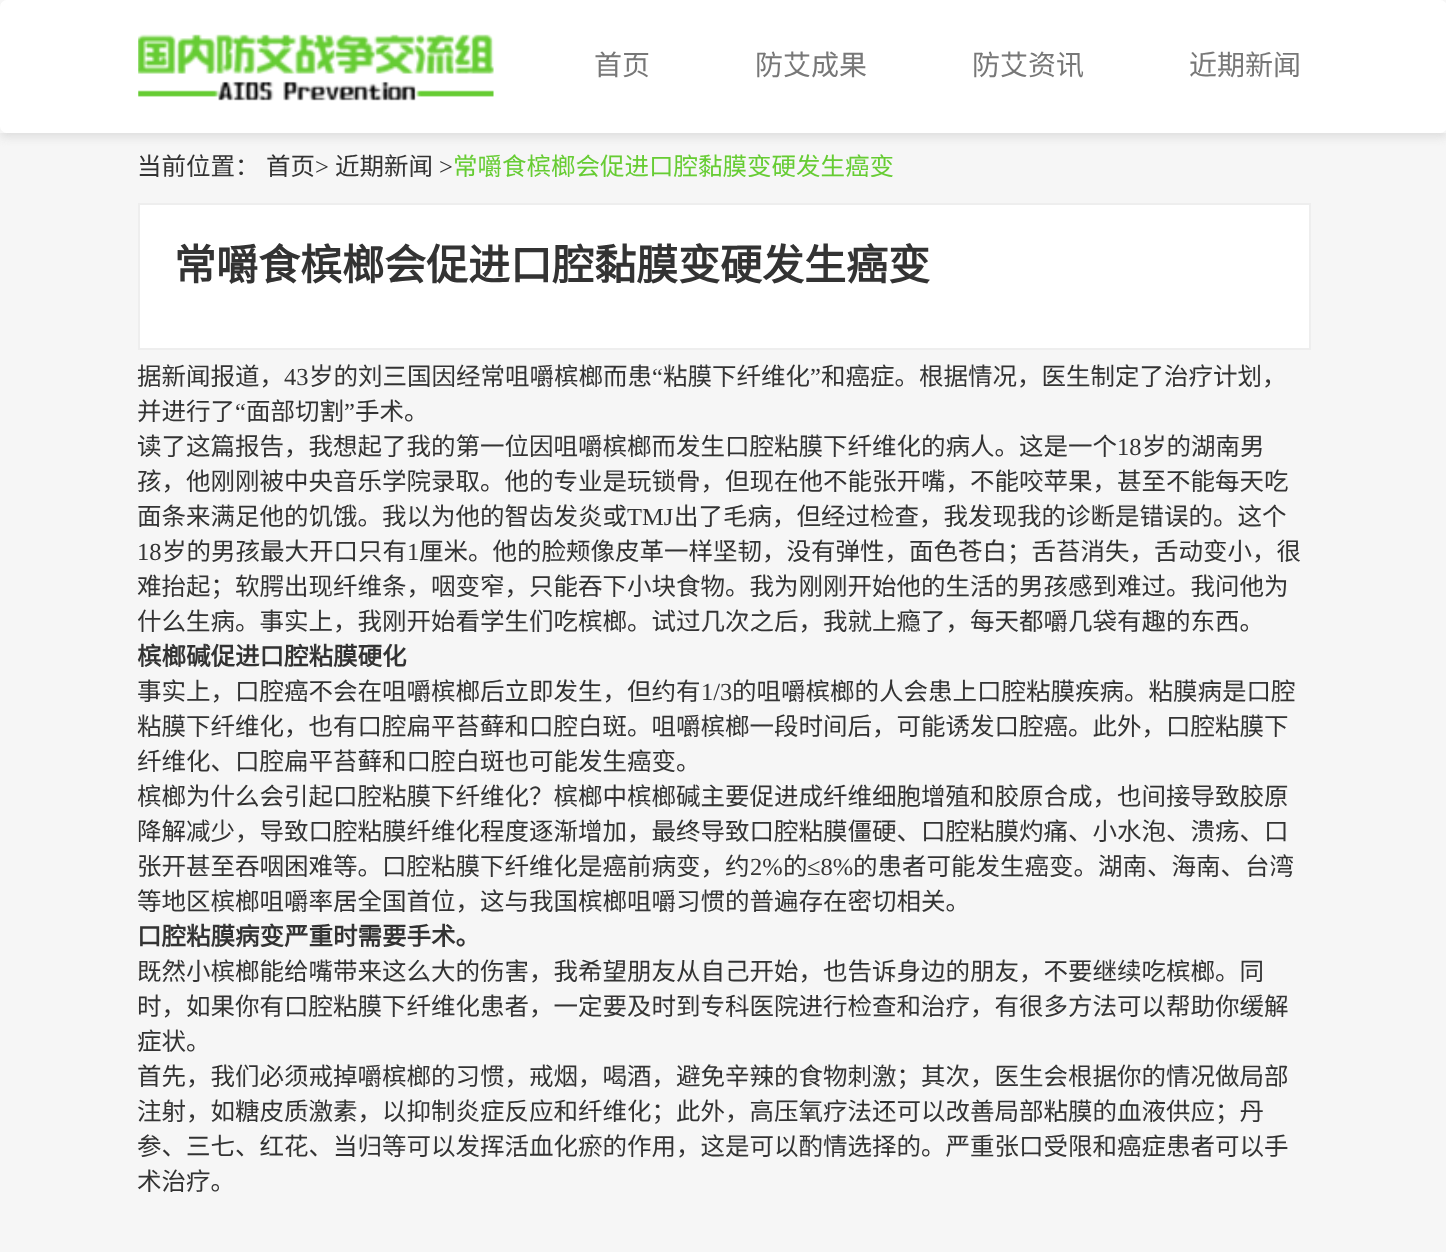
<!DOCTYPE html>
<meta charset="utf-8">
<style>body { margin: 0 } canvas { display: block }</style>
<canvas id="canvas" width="1446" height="1252"></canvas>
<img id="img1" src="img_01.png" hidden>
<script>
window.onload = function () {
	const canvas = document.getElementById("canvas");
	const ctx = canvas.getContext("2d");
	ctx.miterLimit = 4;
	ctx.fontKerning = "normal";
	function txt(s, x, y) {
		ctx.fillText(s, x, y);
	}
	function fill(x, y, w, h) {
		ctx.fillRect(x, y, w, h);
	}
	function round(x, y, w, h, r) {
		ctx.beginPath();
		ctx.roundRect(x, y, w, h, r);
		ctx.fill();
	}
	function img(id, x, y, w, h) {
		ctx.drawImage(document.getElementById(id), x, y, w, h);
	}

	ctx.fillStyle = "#F6F6F6";
	fill(0, 0, 1446, 1252);
	ctx.save();
	ctx.beginPath();
	ctx.rect(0, 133, 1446, 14);
	ctx.clip();
	ctx.fillStyle = "#DDDDDD";
	ctx.filter = "blur(5px)";
	ctx.beginPath();
	ctx.rect(0, 4, 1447, 133);
	ctx.fill();
	ctx.filter = "none";
	ctx.restore();
	ctx.fillStyle = "#FFFFFF";
	round(0, 0, 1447, 133, 7);
	img("img1", 138, 34, 356, 67);
	ctx.beginPath();
	ctx.rect(139, 204, 1171, 145);
	ctx.fill();
	ctx.strokeStyle = "#EEEEEE";
	ctx.lineWidth = 2;
	ctx.stroke();
	ctx.font = "28px Noto Sans CJK SC";
	ctx.fillStyle = "#777777";
	txt("首页", 594, 75);
	txt("防艾成果", 755, 75);
	txt("防艾资讯", 972, 75);
	txt("近期新闻", 1189, 75);
	ctx.font = "24.5px Noto Sans CJK SC";
	ctx.fillStyle = "#333333";
	txt("当前位置：", 137, 175);
	txt("首页", 266, 175);
	ctx.font = "24.5px Liberation Serif";
	txt(">", 315, 175);
	ctx.font = "24.5px Noto Sans CJK SC";
	txt("近期新闻", 335, 175);
	ctx.font = "24.5px Liberation Serif";
	txt(">", 439, 175);
	ctx.font = "24.5px Noto Sans CJK SC";
	ctx.fillStyle = "#66CC33";
	txt("常嚼食槟榔会促进口腔黏膜变硬发生癌变", 453, 175);
	ctx.font = "bold 42px Noto Sans CJK SC";
	ctx.fillStyle = "#333333";
	txt("常嚼食槟榔会促进口腔黏膜变硬发生癌变", 174, 280);
	ctx.font = "24.5px Noto Sans CJK SC";
	txt("据新闻报道，", 137, 385);
	ctx.font = "24.5px Liberation Serif";
	txt("43", 284, 385);
	ctx.font = "24.5px Noto Sans CJK SC";
	txt("岁的刘三国因经常咀嚼槟榔而患", 309, 385);
	ctx.font = "24.5px Liberation Serif";
	txt("“", 652, 385);
	ctx.font = "24.5px Noto Sans CJK SC";
	txt("粘膜下纤维化", 663, 385);
	ctx.font = "24.5px Liberation Serif";
	txt("”", 810, 385);
	ctx.font = "24.5px Noto Sans CJK SC";
	txt("和癌症。根据情况，医生制定了治疗计划，", 821, 385);
	txt("并进行了", 137, 420);
	ctx.font = "24.5px Liberation Serif";
	txt("“", 235, 420);
	ctx.font = "24.5px Noto Sans CJK SC";
	txt("面部切割", 246, 420);
	ctx.font = "24.5px Liberation Serif";
	txt("”", 344, 420);
	ctx.font = "24.5px Noto Sans CJK SC";
	txt("手术。", 355, 420);
	txt("读了这篇报告，我想起了我的第一位因咀嚼槟榔而发生口腔粘膜下纤维化的病人。这是一个", 137, 455);
	ctx.font = "24.5px Liberation Serif";
	txt("18", 1117, 455);
	ctx.font = "24.5px Noto Sans CJK SC";
	txt("岁的湖南男", 1142, 455);
	txt("孩，他刚刚被中央音乐学院录取。他的专业是玩锁骨，但现在他不能张开嘴，不能咬苹果，甚至不能每天吃", 137, 490);
	txt("面条来满足他的饥饿。我以为他的智齿发炎或", 137, 525);
	ctx.font = "24.5px Liberation Serif";
	txt("TMJ", 627, 525);
	ctx.font = "24.5px Noto Sans CJK SC";
	txt("出了毛病，但经过检查，我发现我的诊断是错误的。这个", 674, 525);
	ctx.font = "24.5px Liberation Serif";
	txt("18", 137, 560);
	ctx.font = "24.5px Noto Sans CJK SC";
	txt("岁的男孩最大开口只有", 162, 560);
	ctx.font = "24.5px Liberation Serif";
	txt("1", 407, 560);
	ctx.font = "24.5px Noto Sans CJK SC";
	txt("厘米。他的脸颊像皮革一样坚韧，没有弹性，面色苍白；舌苔消失，舌动变小，很", 419, 560);
	txt("难抬起；软腭出现纤维条，咽变窄，只能吞下小块食物。我为刚刚开始他的生活的男孩感到难过。我问他为", 137, 595);
	txt("什么生病。事实上，我刚开始看学生们吃槟榔。试过几次之后，我就上瘾了，每天都嚼几袋有趣的东西。", 137, 630);
	ctx.font = "bold 24.5px Noto Sans CJK SC";
	txt("槟榔碱促进口腔粘膜硬化", 137, 665);
	ctx.font = "24.5px Noto Sans CJK SC";
	txt("事实上，口腔癌不会在咀嚼槟榔后立即发生，但约有", 137, 700);
	ctx.font = "24.5px Liberation Serif";
	txt("1/3", 701, 700);
	ctx.font = "24.5px Noto Sans CJK SC";
	txt("的咀嚼槟榔的人会患上口腔粘膜疾病。粘膜病是口腔", 732, 700);
	txt("粘膜下纤维化，也有口腔扁平苔藓和口腔白斑。咀嚼槟榔一段时间后，可能诱发口腔癌。此外，口腔粘膜下", 137, 735);
	txt("纤维化、口腔扁平苔藓和口腔白斑也可能发生癌变。", 137, 770);
	txt("槟榔为什么会引起口腔粘膜下纤维化？槟榔中槟榔碱主要促进成纤维细胞增殖和胶原合成，也间接导致胶原", 137, 805);
	txt("降解减少，导致口腔粘膜纤维化程度逐渐增加，最终导致口腔粘膜僵硬、口腔粘膜灼痛、小水泡、溃疡、口", 137, 840);
	txt("张开甚至吞咽困难等。口腔粘膜下纤维化是癌前病变，约", 137, 875);
	ctx.font = "24.5px Liberation Serif";
	txt("2%", 750, 875);
	ctx.font = "24.5px Noto Sans CJK SC";
	txt("的", 783, 875);
	ctx.font = "24.5px Liberation Serif";
	txt("≤8%", 807, 875);
	ctx.font = "24.5px Noto Sans CJK SC";
	txt("的患者可能发生癌变。湖南、海南、台湾", 853, 875);
	txt("等地区槟榔咀嚼率居全国首位，这与我国槟榔咀嚼习惯的普遍存在密切相关。", 137, 910);
	ctx.font = "bold 24.5px Noto Sans CJK SC";
	txt("口腔粘膜病变严重时需要手术。", 137, 945);
	ctx.font = "24.5px Noto Sans CJK SC";
	txt("既然小槟榔能给嘴带来这么大的伤害，我希望朋友从自己开始，也告诉身边的朋友，不要继续吃槟榔。同", 137, 980);
	txt("时，如果你有口腔粘膜下纤维化患者，一定要及时到专科医院进行检查和治疗，有很多方法可以帮助你缓解", 137, 1015);
	txt("症状。", 137, 1050);
	txt("首先，我们必须戒掉嚼槟榔的习惯，戒烟，喝酒，避免辛辣的食物刺激；其次，医生会根据你的情况做局部", 137, 1085);
	txt("注射，如糖皮质激素，以抑制炎症反应和纤维化；此外，高压氧疗法还可以改善局部粘膜的血液供应；丹", 137, 1120);
	txt("参、三七、红花、当归等可以发挥活血化瘀的作用，这是可以酌情选择的。严重张口受限和癌症患者可以手", 137, 1155);
	txt("术治疗。", 137, 1190);
};
</script>
